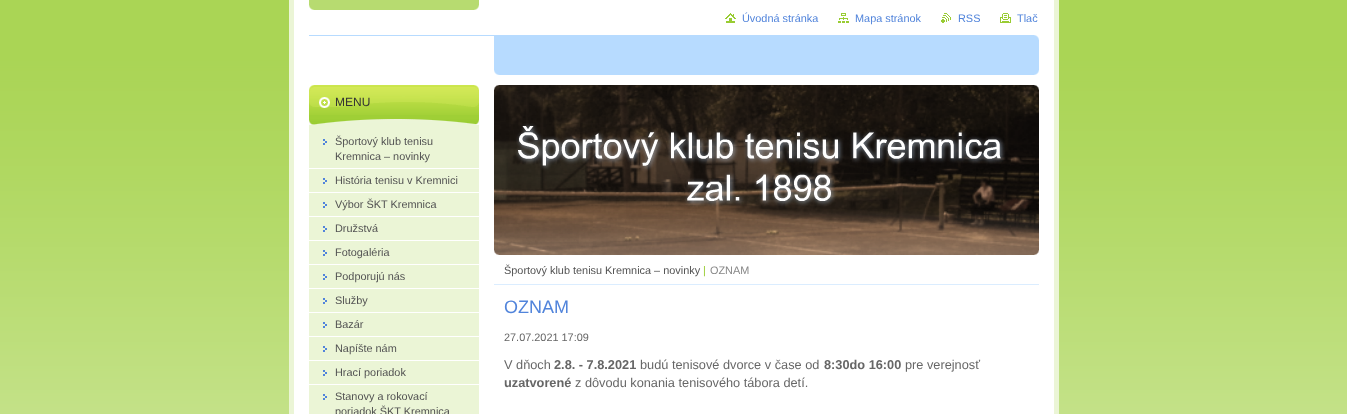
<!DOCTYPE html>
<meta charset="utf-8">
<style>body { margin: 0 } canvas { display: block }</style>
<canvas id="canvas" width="1347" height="414"></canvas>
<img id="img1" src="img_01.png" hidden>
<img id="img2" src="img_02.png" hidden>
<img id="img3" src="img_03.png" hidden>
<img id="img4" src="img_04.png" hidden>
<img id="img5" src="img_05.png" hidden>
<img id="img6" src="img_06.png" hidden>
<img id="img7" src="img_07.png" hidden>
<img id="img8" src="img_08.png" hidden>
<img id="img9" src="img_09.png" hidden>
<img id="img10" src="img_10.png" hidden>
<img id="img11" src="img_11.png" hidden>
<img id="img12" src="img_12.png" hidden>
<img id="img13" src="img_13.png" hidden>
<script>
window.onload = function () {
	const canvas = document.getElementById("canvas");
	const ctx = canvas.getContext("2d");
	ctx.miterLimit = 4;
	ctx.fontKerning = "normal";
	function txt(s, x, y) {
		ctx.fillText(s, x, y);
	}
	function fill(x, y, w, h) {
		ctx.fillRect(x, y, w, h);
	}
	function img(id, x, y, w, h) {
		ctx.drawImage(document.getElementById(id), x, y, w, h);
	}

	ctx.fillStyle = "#FFFFFF";
	fill(0, 0, 1347, 414);
	img("img1", 0, 0, 1347, 414);
	fill(294, 0, 760, 414);
	img("img2", 309, 0, 170, 10);
	ctx.fillStyle = "#EBF5D6";
	fill(1054, 0, 5, 414);
	fill(289, 0, 5, 414);
	img("img3", 725, 13, 11, 10);
	img("img4", 838, 13, 11, 10);
	img("img5", 941, 13, 10, 10);
	img("img6", 1000, 13, 11, 10);
	img("img7", 309, 35, 730, 6);
	ctx.fillStyle = "#B7DBFF";
	fill(494, 41, 545, 29);
	img("img8", 494, 70, 545, 5);
	ctx.fillStyle = "#EBF5D6";
	fill(309, 125, 170, 289);
	ctx.fillStyle = "#9FCF36";
	fill(309, 115, 170, 4);
	img("img9", 309, 85, 170, 30);
	img("img10", 309, 119, 170, 6);
	img("img11", 323, 139, 4, 6);
	ctx.fillStyle = "#FFFFFF";
	fill(309, 168, 170, 1);
	img("img11", 323, 178, 4, 6);
	fill(309, 192, 170, 1);
	img("img11", 323, 202, 4, 6);
	fill(309, 216, 170, 1);
	img("img11", 323, 226, 4, 6);
	fill(309, 240, 170, 1);
	img("img11", 323, 250, 4, 6);
	fill(309, 264, 170, 1);
	img("img11", 323, 274, 4, 6);
	fill(309, 288, 170, 1);
	img("img11", 323, 298, 4, 6);
	fill(309, 312, 170, 1);
	img("img11", 323, 322, 4, 6);
	fill(309, 336, 170, 1);
	img("img11", 323, 346, 4, 6);
	fill(309, 360, 170, 1);
	img("img11", 323, 370, 4, 6);
	fill(309, 384, 170, 1);
	img("img11", 323, 394, 4, 6);
	img("img12", 494, 85, 545, 170);
	img("img13", 494, 85, 545, 170);
	ctx.fillStyle = "#DBEDFF";
	fill(494, 284, 545, 1);
	ctx.font = "10.9px Liberation Sans";
	ctx.fillStyle = "#5184DB";
	txt("Úvodná stránka", 742, 22);
	txt("Mapa stránok", 855, 22);
	txt("RSS", 958, 22);
	txt("Tlač", 1017, 22);
	ctx.font = "12px Liberation Sans";
	ctx.fillStyle = "#333333";
	txt("MENU", 335, 106);
	ctx.font = "10.9px Liberation Sans";
	ctx.fillStyle = "#535353";
	txt("Športový klub tenisu", 335, 145);
	txt("Kremnica – novinky", 335, 160);
	txt("História tenisu v Kremnici", 335, 184);
	txt("Výbor ŠKT Kremnica", 335, 208);
	txt("Družstvá", 335, 232);
	txt("Fotogaléria", 335, 256);
	txt("Podporujú nás", 335, 280);
	txt("Služby", 335, 304);
	txt("Bazár", 335, 328);
	txt("Napíšte nám", 335, 352);
	txt("Hrací poriadok", 335, 376);
	txt("Stanovy a rokovací", 335, 400);
	txt("poriadok ŠKT Kremnica", 335, 415);
	txt("Športový klub tenisu Kremnica – novinky", 504, 274);
	ctx.fillStyle = "#99CC33";
	txt("|", 703, 274);
	ctx.fillStyle = "#878787";
	txt("OZNAM", 710, 274);
	ctx.font = "18px Liberation Sans";
	ctx.fillStyle = "#5184DB";
	txt("OZNAM", 504, 313);
	ctx.font = "10.9px Liberation Sans";
	ctx.fillStyle = "#666666";
	txt("27.07.2021 17:09", 504, 341);
	ctx.font = "12.75px Liberation Sans";
	txt("V dňoch", 504, 369);
	ctx.font = "bold 12.75px Liberation Sans";
	txt("2.8. - 7.8.2021", 554, 369);
	ctx.font = "12.75px Liberation Sans";
	txt("budú tenisové dvorce v čase od", 640, 369);
	ctx.font = "bold 12.75px Liberation Sans";
	txt("8:30do 16:00", 824, 369);
	ctx.font = "12.75px Liberation Sans";
	txt("pre verejnosť", 905, 369);
	ctx.font = "bold 12.75px Liberation Sans";
	txt("uzatvorené", 504, 387);
	ctx.font = "12.75px Liberation Sans";
	txt("z dôvodu konania tenisového tábora detí.", 575, 387);
};
</script>
